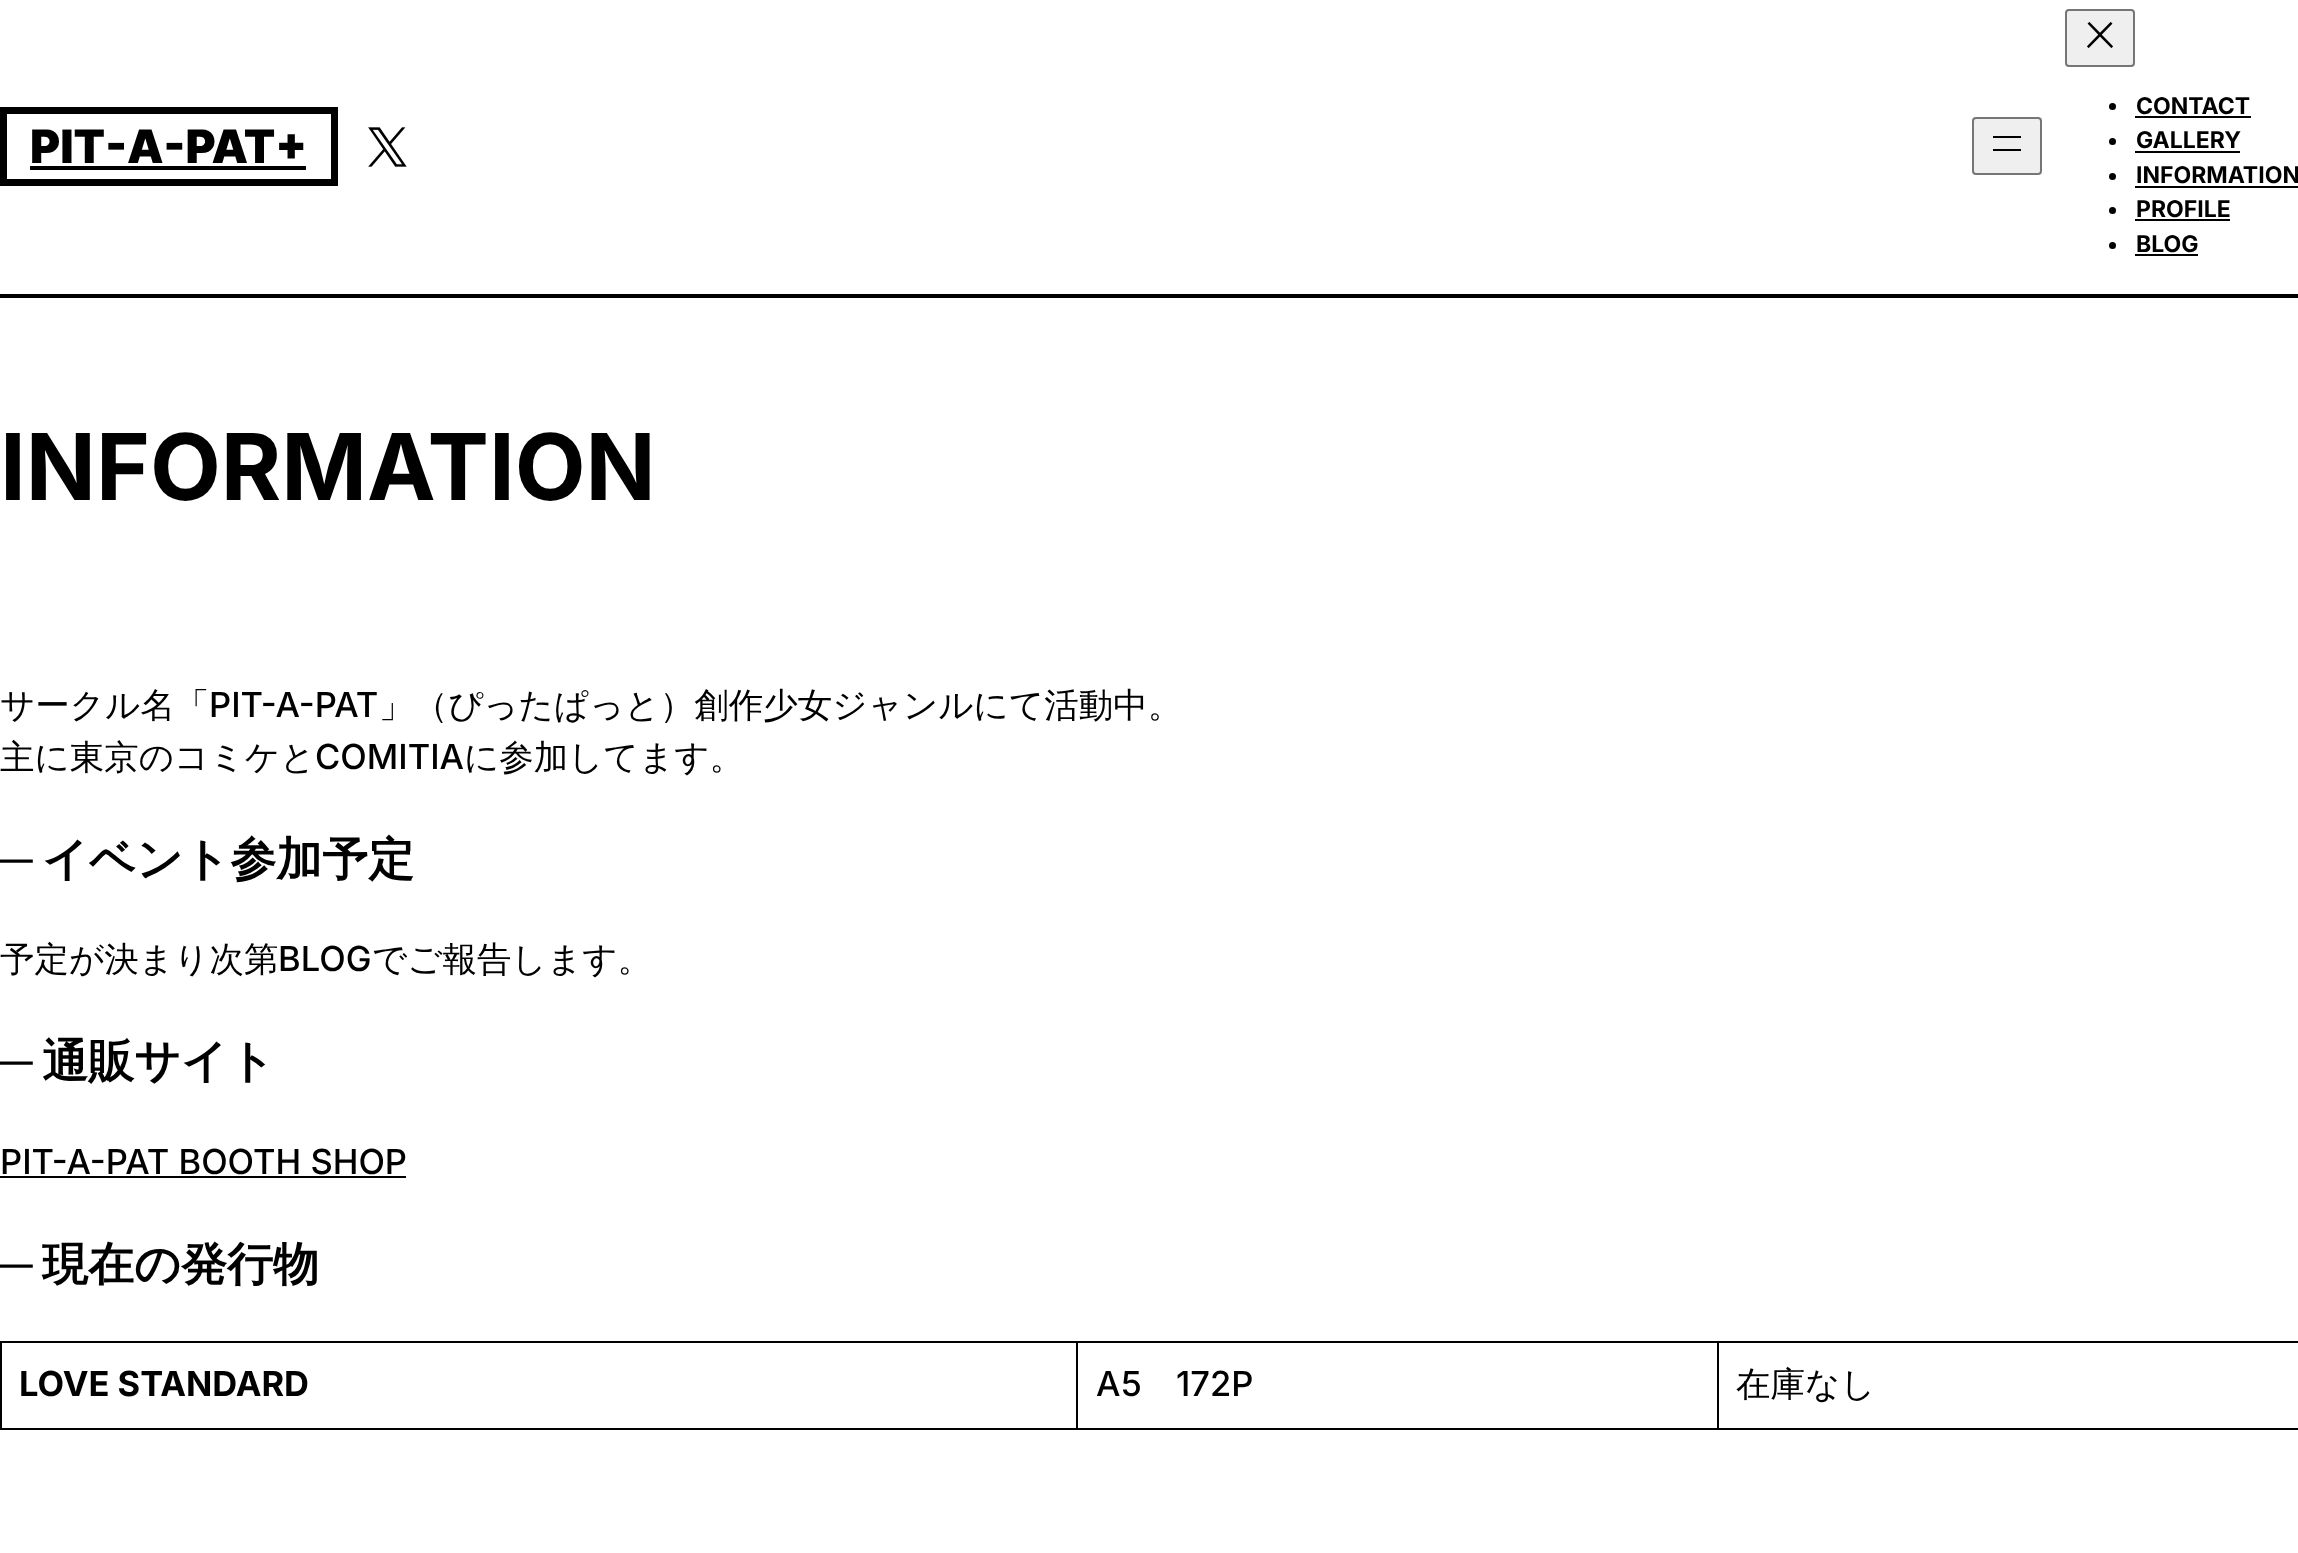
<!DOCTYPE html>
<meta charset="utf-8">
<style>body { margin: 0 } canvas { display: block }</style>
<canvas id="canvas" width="2298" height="1553"></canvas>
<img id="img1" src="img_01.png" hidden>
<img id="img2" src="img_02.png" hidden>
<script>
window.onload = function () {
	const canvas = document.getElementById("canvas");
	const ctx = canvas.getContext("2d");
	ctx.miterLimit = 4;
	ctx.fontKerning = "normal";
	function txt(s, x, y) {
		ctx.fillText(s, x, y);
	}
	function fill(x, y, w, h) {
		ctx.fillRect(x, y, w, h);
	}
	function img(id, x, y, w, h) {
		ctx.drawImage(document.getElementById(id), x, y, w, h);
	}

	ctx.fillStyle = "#FFFFFF";
	fill(0, 0, 2298, 1553);
	ctx.strokeStyle = "#000000";
	ctx.lineWidth = 7;
	ctx.strokeRect(3.5, 110.5, 331, 72);
	ctx.fillStyle = "#000000";
	fill(30, 166, 276, 4);
	img("img1", 368, 127, 39, 40);
	ctx.fillStyle = "#EFEFEF";
	ctx.beginPath();
	ctx.roundRect(1973, 118, 68, 56, 3);
	ctx.fill();
	ctx.strokeStyle = "#767676";
	ctx.lineWidth = 2;
	ctx.stroke();
	ctx.fillStyle = "#000000";
	fill(1993, 136, 28, 2);
	fill(1993, 149, 28, 2);
	ctx.fillStyle = "#EFEFEF";
	ctx.beginPath();
	ctx.roundRect(2066, 10, 68, 56, 3);
	ctx.fill();
	ctx.stroke();
	img("img2", 2087, 22, 26, 26);
	ctx.fillStyle = "#000000";
	ctx.beginPath();
	ctx.arc(2112.5, 106.5, 3.5, 0, Math.PI * 2);
	ctx.fill();
	fill(2135, 116, 116, 2);
	ctx.beginPath();
	ctx.arc(2112.5, 141.5, 3.5, 0, Math.PI * 2);
	ctx.fill();
	fill(2135, 151, 105, 2);
	ctx.beginPath();
	ctx.arc(2112.5, 176.5, 3.5, 0, Math.PI * 2);
	ctx.fill();
	fill(2135, 186, 163, 2);
	ctx.beginPath();
	ctx.arc(2112.5, 210.5, 3.5, 0, Math.PI * 2);
	ctx.fill();
	fill(2135, 219, 95, 2);
	ctx.beginPath();
	ctx.arc(2112.5, 245.5, 3.5, 0, Math.PI * 2);
	ctx.fill();
	fill(2135, 254, 63, 2);
	fill(0, 294, 2298, 4);
	fill(0, 1176, 406, 2);
	fill(1717, 1341, 581, 2);
	fill(1717, 1428, 581, 2);
	fill(1717, 1341, 2, 89);
	fill(1076, 1341, 643, 2);
	fill(1076, 1428, 643, 2);
	fill(1076, 1341, 2, 89);
	fill(0, 1341, 1078, 2);
	fill(0, 1428, 1078, 2);
	fill(0, 1341, 2, 89);
	ctx.font = "900 46px Inter";
	txt("PIT-A-PAT+", 30, 163);
	ctx.font = "bold 23px Inter";
	txt("CONTACT", 2136, 114);
	txt("GALLERY", 2136, 148);
	txt("INFORMATION", 2136, 183);
	txt("PROFILE", 2136, 217);
	txt("BLOG", 2136, 252);
	ctx.font = "bold 92px Inter";
	txt("INFORMATION", 0, 500);
	ctx.font = "500 34.5px WenQuanYi Zen Hei";
	txt("サークル名「", 0, 717);
	ctx.font = "500 34.5px Inter";
	txt("PIT-A-PAT", 209, 717);
	ctx.font = "500 34.5px WenQuanYi Zen Hei";
	txt("」（ぴったぱっと）創作少女ジャンルにて活動中。", 379, 717);
	txt("主に東京のコミケと", 0, 769);
	ctx.font = "500 34.5px Inter";
	txt("COMITIA", 315, 769);
	ctx.font = "500 34.5px WenQuanYi Zen Hei";
	txt("に参加してます。", 464, 769);
	ctx.font = "bold 46px Liberation Sans";
	txt("─", 0, 875);
	ctx.font = "bold 46px WenQuanYi Zen Hei";
	txt("イベント参加予定", 42, 875);
	ctx.font = "500 34.5px WenQuanYi Zen Hei";
	txt("予定が決まり次第", 0, 971);
	ctx.font = "500 34.5px Inter";
	txt("BLOG", 278, 971);
	ctx.font = "500 34.5px WenQuanYi Zen Hei";
	txt("でご報告します。", 372, 971);
	ctx.font = "bold 46px Liberation Sans";
	txt("─", 0, 1077);
	ctx.font = "bold 46px WenQuanYi Zen Hei";
	txt("通販サイト", 42, 1077);
	ctx.font = "500 34.5px Inter";
	txt("PIT-A-PAT BOOTH SHOP", 0, 1174);
	ctx.font = "bold 46px Liberation Sans";
	txt("─", 0, 1280);
	ctx.font = "bold 46px WenQuanYi Zen Hei";
	txt("現在の発行物", 42, 1280);
	ctx.font = "bold 34.5px Inter";
	txt("LOVE STANDARD", 19, 1396);
	ctx.font = "500 34.5px Inter";
	txt("A5", 1096, 1396);
	txt("172P", 1176, 1396);
	ctx.font = "500 34.5px WenQuanYi Zen Hei";
	txt("在庫なし", 1736, 1396);
};
</script>
